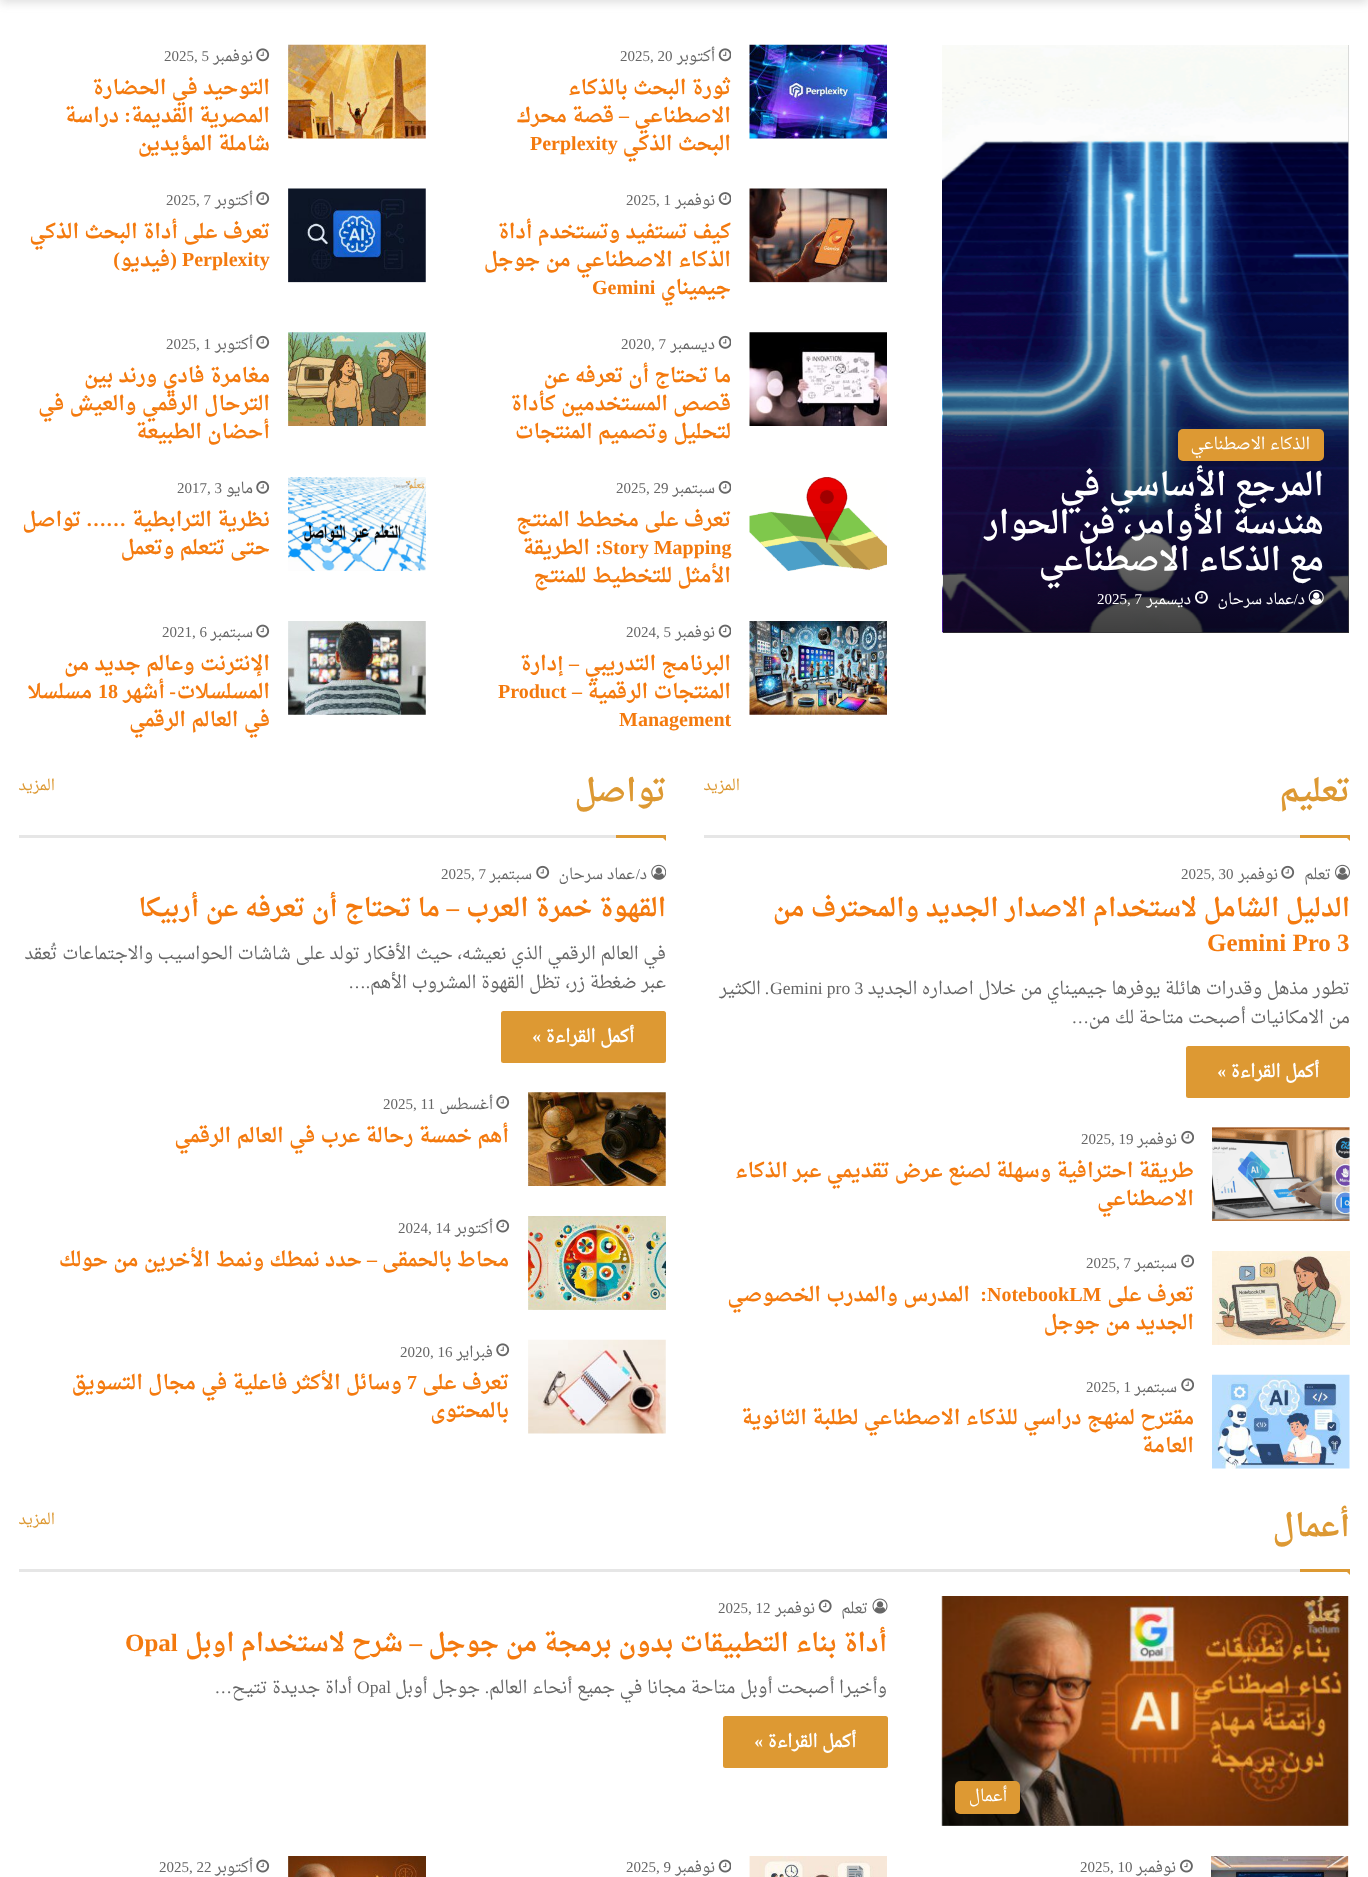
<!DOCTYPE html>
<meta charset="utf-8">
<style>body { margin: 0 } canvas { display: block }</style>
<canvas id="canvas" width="1368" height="1877"></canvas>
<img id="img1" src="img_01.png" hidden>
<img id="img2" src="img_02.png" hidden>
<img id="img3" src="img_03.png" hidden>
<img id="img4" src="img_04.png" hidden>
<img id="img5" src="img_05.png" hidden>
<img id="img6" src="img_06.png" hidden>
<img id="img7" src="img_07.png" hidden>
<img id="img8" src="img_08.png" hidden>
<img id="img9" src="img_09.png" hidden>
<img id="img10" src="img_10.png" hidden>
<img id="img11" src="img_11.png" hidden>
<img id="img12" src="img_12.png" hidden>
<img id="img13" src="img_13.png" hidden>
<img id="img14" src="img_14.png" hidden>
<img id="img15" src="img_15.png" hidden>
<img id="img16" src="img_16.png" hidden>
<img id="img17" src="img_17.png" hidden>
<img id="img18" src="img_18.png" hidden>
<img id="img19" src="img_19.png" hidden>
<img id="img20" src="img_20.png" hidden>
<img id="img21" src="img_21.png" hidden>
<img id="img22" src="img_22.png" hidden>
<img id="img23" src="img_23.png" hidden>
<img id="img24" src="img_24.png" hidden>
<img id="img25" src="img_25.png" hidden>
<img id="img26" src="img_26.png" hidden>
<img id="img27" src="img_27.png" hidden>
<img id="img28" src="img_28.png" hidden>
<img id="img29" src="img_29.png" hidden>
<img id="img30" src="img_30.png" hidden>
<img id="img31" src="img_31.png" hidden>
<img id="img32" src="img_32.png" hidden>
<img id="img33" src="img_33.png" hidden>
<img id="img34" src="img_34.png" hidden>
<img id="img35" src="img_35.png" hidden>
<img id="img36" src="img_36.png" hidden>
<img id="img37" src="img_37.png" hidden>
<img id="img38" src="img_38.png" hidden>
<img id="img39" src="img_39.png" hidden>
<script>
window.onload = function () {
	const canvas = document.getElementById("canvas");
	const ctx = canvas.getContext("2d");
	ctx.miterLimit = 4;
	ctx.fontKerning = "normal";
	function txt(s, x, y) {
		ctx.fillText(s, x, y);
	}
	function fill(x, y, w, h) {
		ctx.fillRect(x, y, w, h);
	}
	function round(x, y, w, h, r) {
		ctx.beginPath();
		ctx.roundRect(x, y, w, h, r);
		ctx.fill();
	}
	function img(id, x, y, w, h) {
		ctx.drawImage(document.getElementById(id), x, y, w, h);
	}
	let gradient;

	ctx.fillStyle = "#FFFFFF";
	fill(0, 0, 1368, 1877);
	ctx.fillStyle = "rgba(99, 99, 99, 0.2)";
	ctx.filter = "blur(5px)";
	ctx.beginPath();
	ctx.rect(0, -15, 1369, 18);
	ctx.fill();
	ctx.filter = "none";
	img("img1", 749, 44, 138, 95);
	img("img2", 718, 48, 13, 14);
	img("img3", 288, 44, 138, 95);
	img("img4", 256, 48, 14, 14);
	img("img5", 749, 188, 138, 95);
	img("img6", 718, 192, 13, 13);
	img("img7", 288, 188, 138, 95);
	img("img8", 256, 192, 14, 13);
	img("img9", 749, 332, 138, 94);
	img("img10", 718, 335, 13, 14);
	img("img11", 288, 332, 138, 94);
	img("img12", 256, 335, 14, 14);
	ctx.fillStyle = "#CDCDCD";
	fill(943, 45, 406, 588);
	img("img13", 942, 45, 407, 588);
	gradient = ctx.createLinearGradient(1146, 251, 1146, 633);
	gradient.addColorStop(0, "rgba(0, 0, 0, 0)");
	gradient.addColorStop(1, "rgba(0, 0, 0, 0.75)");
	ctx.fillStyle = gradient;
	fill(943, 262, 406, 371);
	ctx.fillStyle = "#DD9933";
	round(1178, 429, 146, 32, 5);
	img("img14", 1308, 589, 16, 16);
	img("img15", 1195, 590, 13, 14);
	img("img16", 749, 477, 138, 94);
	img("img10", 718, 480, 13, 14);
	img("img17", 288, 477, 138, 94);
	img("img12", 256, 480, 14, 14);
	img("img18", 749, 621, 138, 94);
	img("img19", 718, 624, 13, 14);
	img("img20", 288, 621, 138, 94);
	img("img21", 256, 624, 14, 14);
	ctx.fillStyle = "#E6E6E6";
	fill(704, 835, 596, 3);
	ctx.fillStyle = "#DD9933";
	ctx.beginPath();
	ctx.moveTo(1344, 835);
	ctx.lineTo(1350, 835);
	ctx.lineTo(1350, 841);
	ctx.closePath();
	ctx.fill();
	fill(1300, 835, 50, 3);
	img("img22", 1335, 864, 15, 16);
	img("img12", 1281, 865, 14, 14);
	round(1186, 1046, 164, 52, 2.5);
	img("img23", 1212, 1127, 138, 94);
	img("img24", 1181, 1130, 13, 14);
	img("img25", 1212, 1251, 138, 94);
	img("img26", 1181, 1254, 13, 14);
	img("img27", 1212, 1374, 138, 95);
	img("img28", 1181, 1378, 13, 14);
	ctx.fillStyle = "#E6E6E6";
	fill(19, 835, 597, 3);
	ctx.fillStyle = "#DD9933";
	ctx.beginPath();
	ctx.moveTo(660, 835);
	ctx.lineTo(666, 835);
	ctx.lineTo(666, 841);
	ctx.closePath();
	ctx.fill();
	fill(616, 835, 50, 3);
	img("img29", 651, 864, 15, 16);
	img("img12", 536, 865, 14, 14);
	round(501, 1011, 165, 52, 2.5);
	img("img30", 528, 1092, 138, 94);
	img("img12", 496, 1095, 14, 14);
	img("img31", 528, 1216, 138, 94);
	img("img21", 496, 1219, 14, 14);
	img("img32", 528, 1339, 138, 95);
	img("img4", 496, 1343, 14, 14);
	ctx.fillStyle = "#E6E6E6";
	fill(19, 1569, 1281, 3);
	ctx.fillStyle = "#DD9933";
	ctx.beginPath();
	ctx.moveTo(1344, 1569);
	ctx.lineTo(1350, 1569);
	ctx.lineTo(1350, 1575);
	ctx.closePath();
	ctx.fill();
	fill(1300, 1569, 50, 3);
	img("img33", 872, 1598, 16, 16);
	img("img34", 818, 1599, 14, 14);
	round(723, 1716, 165, 52, 2.5);
	img("img35", 941, 1596, 409, 230);
	round(955, 1781, 65, 33, 5);
	img("img36", 1211, 1856, 138, 21);
	img("img37", 1180, 1859, 13, 14);
	img("img38", 749, 1856, 138, 21);
	img("img19", 718, 1859, 13, 14);
	img("img39", 288, 1856, 138, 21);
	img("img21", 256, 1859, 14, 14);
	ctx.direction = "rtl";
	ctx.font = "15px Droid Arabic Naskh";
	ctx.fillStyle = "#666666";
	txt("أكتوبر", 715, 61);
	ctx.direction = "ltr";
	ctx.font = "15px Liberation Serif";
	txt("2025, 20", 620, 61);
	ctx.direction = "rtl";
	ctx.font = "bold 20px Droid Arabic Naskh";
	ctx.fillStyle = "#F47A0E";
	txt("ثورة البحث بالذكاء", 731, 94);
	txt("الاصطناعي", 731, 122);
	ctx.font = "bold 20px Liberation Serif";
	txt("–", 629, 122);
	ctx.font = "bold 20px Droid Arabic Naskh";
	txt("قصة محرك", 614, 122);
	txt("البحث الذكي", 731, 150);
	ctx.direction = "ltr";
	ctx.font = "bold 20px Liberation Serif";
	txt("Perplexity", 530, 150);
	ctx.direction = "rtl";
	ctx.font = "15px Droid Arabic Naskh";
	ctx.fillStyle = "#666666";
	txt("نوفمبر", 253, 61);
	ctx.direction = "ltr";
	ctx.font = "15px Liberation Serif";
	txt("2025, 5", 164, 61);
	ctx.direction = "rtl";
	ctx.font = "bold 20px Droid Arabic Naskh";
	ctx.fillStyle = "#F47A0E";
	txt("التوحيد في الحضارة", 270, 94);
	txt("المصرية القديمة", 270, 122);
	ctx.font = "bold 20px Liberation Serif";
	txt(":", 131, 122);
	ctx.font = "bold 20px Droid Arabic Naskh";
	txt("دراسة", 119, 122);
	txt("شاملة المؤيدين", 270, 150);
	ctx.font = "15px Droid Arabic Naskh";
	ctx.fillStyle = "#666666";
	txt("نوفمبر", 715, 205);
	ctx.direction = "ltr";
	ctx.font = "15px Liberation Serif";
	txt("2025, 1", 626, 205);
	ctx.direction = "rtl";
	ctx.font = "bold 20px Droid Arabic Naskh";
	ctx.fillStyle = "#F47A0E";
	txt("كيف تستفيد وتستخدم أداة", 731, 238);
	txt("الذكاء الاصطناعي من جوجل", 731, 266);
	txt("جيميناي", 731, 294);
	ctx.direction = "ltr";
	ctx.font = "bold 20px Liberation Serif";
	txt("Gemini", 592, 294);
	ctx.direction = "rtl";
	ctx.font = "15px Droid Arabic Naskh";
	ctx.fillStyle = "#666666";
	txt("أكتوبر", 253, 205);
	ctx.direction = "ltr";
	ctx.font = "15px Liberation Serif";
	txt("2025, 7", 166, 205);
	ctx.direction = "rtl";
	ctx.font = "bold 20px Droid Arabic Naskh";
	ctx.fillStyle = "#F47A0E";
	txt("تعرف على أداة البحث الذكي", 270, 238);
	ctx.direction = "ltr";
	ctx.font = "bold 20px Liberation Serif";
	txt("Perplexity", 182, 266);
	ctx.direction = "rtl";
	txt("(", 177, 266);
	ctx.font = "bold 20px Droid Arabic Naskh";
	txt("فيديو", 170, 266);
	ctx.font = "bold 20px Liberation Serif";
	txt(")", 120, 266);
	ctx.font = "15px Droid Arabic Naskh";
	ctx.fillStyle = "#666666";
	txt("ديسمبر", 715, 349);
	ctx.direction = "ltr";
	ctx.font = "15px Liberation Serif";
	txt("2020, 7", 621, 349);
	ctx.direction = "rtl";
	ctx.font = "bold 20px Droid Arabic Naskh";
	ctx.fillStyle = "#F47A0E";
	txt("ما تحتاج أن تعرفه عن", 731, 382);
	txt("قصص المستخدمين كأداة", 731, 410);
	txt("لتحليل وتصميم المنتجات", 731, 438);
	ctx.font = "15px Droid Arabic Naskh";
	ctx.fillStyle = "#666666";
	txt("أكتوبر", 253, 349);
	ctx.direction = "ltr";
	ctx.font = "15px Liberation Serif";
	txt("2025, 1", 166, 349);
	ctx.direction = "rtl";
	ctx.font = "bold 20px Droid Arabic Naskh";
	ctx.fillStyle = "#F47A0E";
	txt("مغامرة فادي ورند بين", 270, 382);
	txt("الترحال الرقمي والعيش في", 270, 410);
	txt("أحضان الطبيعة", 270, 438);
	ctx.font = "16.25px Droid Arabic Naskh";
	ctx.fillStyle = "#FFFFFF";
	txt("الذكاء الاصطناعي", 1310, 449);
	ctx.font = "bold 31.25px Droid Arabic Naskh";
	txt("المرجع الأساسي في", 1324, 495);
	txt("هندسة الأوامر، فن الحوار", 1324, 533);
	txt("مع الذكاء الاصطناعي", 1324, 570);
	ctx.font = "15px Droid Arabic Naskh";
	txt("د", 1305, 604);
	txt("عماد سرحان", 1294, 604);
	ctx.font = "15px Liberation Serif";
	txt("/", 1298, 604);
	ctx.font = "15px Droid Arabic Naskh";
	txt("ديسمبر", 1191, 604);
	ctx.direction = "ltr";
	ctx.font = "15px Liberation Serif";
	txt("2025, 7", 1097, 604);
	ctx.direction = "rtl";
	ctx.font = "15px Droid Arabic Naskh";
	ctx.fillStyle = "#666666";
	txt("سبتمبر", 715, 493);
	ctx.direction = "ltr";
	ctx.font = "15px Liberation Serif";
	txt("2025, 29", 616, 493);
	ctx.direction = "rtl";
	ctx.font = "bold 20px Droid Arabic Naskh";
	ctx.fillStyle = "#F47A0E";
	txt("تعرف على مخطط المنتج", 731, 526);
	ctx.direction = "ltr";
	ctx.font = "bold 20px Liberation Serif";
	txt("Story Mapping", 602, 554);
	ctx.direction = "rtl";
	txt(":", 602, 554);
	ctx.font = "bold 20px Droid Arabic Naskh";
	txt("الطريقة", 590, 554);
	txt("الأمثل للتخطيط للمنتج", 731, 582);
	ctx.font = "15px Droid Arabic Naskh";
	ctx.fillStyle = "#666666";
	txt("مايو", 253, 493);
	ctx.direction = "ltr";
	ctx.font = "15px Liberation Serif";
	txt("2017, 3", 177, 493);
	ctx.direction = "rtl";
	ctx.font = "bold 20px Droid Arabic Naskh";
	ctx.fillStyle = "#F47A0E";
	txt("نظرية الترابطية", 270, 526);
	ctx.font = "bold 20px Liberation Serif";
	txt("……", 126, 526);
	ctx.font = "bold 20px Droid Arabic Naskh";
	txt("تواصل", 81, 526);
	txt("حتى تتعلم وتعمل", 270, 554);
	ctx.font = "15px Droid Arabic Naskh";
	ctx.fillStyle = "#666666";
	txt("نوفمبر", 715, 637);
	ctx.direction = "ltr";
	ctx.font = "15px Liberation Serif";
	txt("2024, 5", 626, 637);
	ctx.direction = "rtl";
	ctx.font = "bold 20px Droid Arabic Naskh";
	ctx.fillStyle = "#F47A0E";
	txt("البرنامج التدريبي", 731, 670);
	ctx.font = "bold 20px Liberation Serif";
	txt("–", 579, 670);
	ctx.font = "bold 20px Droid Arabic Naskh";
	txt("إدارة", 564, 670);
	txt("المنتجات الرقمية", 731, 698);
	ctx.font = "bold 20px Liberation Serif";
	txt("–", 582, 698);
	ctx.direction = "ltr";
	txt("Product", 498, 698);
	txt("Management", 619, 726);
	ctx.direction = "rtl";
	ctx.font = "15px Droid Arabic Naskh";
	ctx.fillStyle = "#666666";
	txt("سبتمبر", 253, 637);
	ctx.direction = "ltr";
	ctx.font = "15px Liberation Serif";
	txt("2021, 6", 162, 637);
	ctx.direction = "rtl";
	ctx.font = "bold 20px Droid Arabic Naskh";
	ctx.fillStyle = "#F47A0E";
	txt("الإنترنت وعالم جديد من", 270, 670);
	txt("المسلسلات", 270, 698);
	ctx.font = "bold 20px Liberation Serif";
	txt("-", 176, 698);
	ctx.font = "bold 20px Droid Arabic Naskh";
	txt("أشهر", 165, 698);
	ctx.direction = "ltr";
	ctx.font = "bold 20px Liberation Serif";
	txt("18", 98, 698);
	ctx.direction = "rtl";
	ctx.font = "bold 20px Droid Arabic Naskh";
	txt("مسلسلا", 92, 698);
	txt("في العالم الرقمي", 270, 726);
	ctx.font = "bold 31.25px Droid Arabic Naskh";
	ctx.fillStyle = "#DD9933";
	txt("تعليم", 1350, 801);
	ctx.font = "15px Droid Arabic Naskh";
	txt("المزيد", 740, 790);
	ctx.fillStyle = "#666666";
	txt("تعلم", 1331, 879);
	txt("نوفمبر", 1278, 879);
	ctx.direction = "ltr";
	ctx.font = "15px Liberation Serif";
	txt("2025, 30", 1181, 879);
	ctx.direction = "rtl";
	ctx.font = "bold 25px Droid Arabic Naskh";
	ctx.fillStyle = "#F47A0E";
	txt("الدليل الشامل لاستخدام الاصدار الجديد والمحترف من", 1350, 916);
	ctx.direction = "ltr";
	ctx.font = "bold 25px Liberation Serif";
	txt("Gemini Pro 3", 1207, 951);
	ctx.direction = "rtl";
	ctx.font = "17.5px Droid Arabic Naskh";
	ctx.fillStyle = "#666666";
	txt("تطور مذهل وقدرات هائلة يوفرها جيميناي من خلال اصداره الجديد", 1350, 994);
	ctx.direction = "ltr";
	ctx.font = "17.5px Liberation Serif";
	txt("Gemini pro 3", 770, 994);
	ctx.direction = "rtl";
	txt(".", 769, 994);
	ctx.font = "17.5px Droid Arabic Naskh";
	txt("الكثير", 761, 994);
	txt("من الامكانيات أصبحت متاحة لك من", 1350, 1023);
	ctx.font = "17.5px Liberation Serif";
	txt("…", 1089, 1023);
	ctx.font = "bold 17.5px 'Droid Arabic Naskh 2'";
	ctx.fillStyle = "#FFFFFF";
	txt("أكمل القراءة", 1319, 1077);
	ctx.font = "bold 17.5px Liberation Serif";
	txt("»", 1226, 1077);
	ctx.font = "15px Droid Arabic Naskh";
	ctx.fillStyle = "#666666";
	txt("نوفمبر", 1177, 1144);
	ctx.direction = "ltr";
	ctx.font = "15px Liberation Serif";
	txt("2025, 19", 1081, 1144);
	ctx.direction = "rtl";
	ctx.font = "bold 20px Droid Arabic Naskh";
	ctx.fillStyle = "#F47A0E";
	txt("طريقة احترافية وسهلة لصنع عرض تقديمي عبر الذكاء", 1194, 1177);
	txt("الاصطناعي", 1194, 1205);
	ctx.font = "15px Droid Arabic Naskh";
	ctx.fillStyle = "#666666";
	txt("سبتمبر", 1177, 1268);
	ctx.direction = "ltr";
	ctx.font = "15px Liberation Serif";
	txt("2025, 7", 1086, 1268);
	ctx.direction = "rtl";
	ctx.font = "bold 20px Droid Arabic Naskh";
	ctx.fillStyle = "#F47A0E";
	txt("تعرف على", 1194, 1301);
	ctx.direction = "ltr";
	ctx.font = "bold 20px Liberation Serif";
	txt("NotebookLM", 987, 1301);
	ctx.direction = "rtl";
	txt(":", 987, 1301);
	ctx.font = "bold 20px Droid Arabic Naskh";
	txt("المدرس والمدرب الخصوصي", 970, 1301);
	txt("الجديد من جوجل", 1194, 1329);
	ctx.font = "15px Droid Arabic Naskh";
	ctx.fillStyle = "#666666";
	txt("سبتمبر", 1177, 1392);
	ctx.direction = "ltr";
	ctx.font = "15px Liberation Serif";
	txt("2025, 1", 1086, 1392);
	ctx.direction = "rtl";
	ctx.font = "bold 20px Droid Arabic Naskh";
	ctx.fillStyle = "#F47A0E";
	txt("مقترح لمنهج دراسي للذكاء الاصطناعي لطلبة الثانوية", 1194, 1424);
	txt("العامة", 1194, 1452);
	ctx.font = "bold 31.25px Droid Arabic Naskh";
	ctx.fillStyle = "#DD9933";
	txt("تواصل", 666, 801);
	ctx.font = "15px Droid Arabic Naskh";
	txt("المزيد", 55, 790);
	ctx.fillStyle = "#666666";
	txt("د", 647, 879);
	ctx.font = "15px Liberation Serif";
	txt("/", 640, 879);
	ctx.font = "15px Droid Arabic Naskh";
	txt("عماد سرحان", 635, 879);
	txt("سبتمبر", 532, 879);
	ctx.direction = "ltr";
	ctx.font = "15px Liberation Serif";
	txt("2025, 7", 441, 879);
	ctx.direction = "rtl";
	ctx.font = "bold 25px Droid Arabic Naskh";
	ctx.fillStyle = "#F47A0E";
	txt("القهوة خمرة العرب", 666, 916);
	ctx.font = "bold 25px Liberation Serif";
	txt("–", 459, 916);
	ctx.font = "bold 25px Droid Arabic Naskh";
	txt("ما تحتاج أن تعرفه عن أربيكا", 440, 916);
	ctx.font = "17.5px Droid Arabic Naskh";
	ctx.fillStyle = "#666666";
	txt("في العالم الرقمي الذي نعيشه، حيث الأفكار تولد على شاشات الحواسيب والاجتماعات تُعقد", 666, 959);
	txt("عبر ضغطة زر، تظل القهوة المشروب الأهم", 666, 988);
	ctx.font = "17.5px Liberation Serif";
	txt(".…", 370, 988);
	ctx.font = "bold 17.5px 'Droid Arabic Naskh 2'";
	ctx.fillStyle = "#FFFFFF";
	txt("أكمل القراءة", 634, 1042);
	ctx.font = "bold 17.5px Liberation Serif";
	txt("»", 541, 1042);
	ctx.font = "15px Droid Arabic Naskh";
	ctx.fillStyle = "#666666";
	txt("أغسطس", 493, 1109);
	ctx.direction = "ltr";
	ctx.font = "15px Liberation Serif";
	txt("2025, 11", 383, 1109);
	ctx.direction = "rtl";
	ctx.font = "bold 20px Droid Arabic Naskh";
	ctx.fillStyle = "#F47A0E";
	txt("أهم خمسة رحالة عرب في العالم الرقمي", 509, 1142);
	ctx.font = "15px Droid Arabic Naskh";
	ctx.fillStyle = "#666666";
	txt("أكتوبر", 493, 1233);
	ctx.direction = "ltr";
	ctx.font = "15px Liberation Serif";
	txt("2024, 14", 398, 1233);
	ctx.direction = "rtl";
	ctx.font = "bold 20px Droid Arabic Naskh";
	ctx.fillStyle = "#F47A0E";
	txt("محاط بالحمقى", 509, 1266);
	ctx.font = "bold 20px Liberation Serif";
	txt("–", 377, 1266);
	ctx.font = "bold 20px Droid Arabic Naskh";
	txt("حدد نمطك ونمط الأخرين من حولك", 362, 1266);
	ctx.font = "15px Droid Arabic Naskh";
	ctx.fillStyle = "#666666";
	txt("فبراير", 493, 1357);
	ctx.direction = "ltr";
	ctx.font = "15px Liberation Serif";
	txt("2020, 16", 400, 1357);
	ctx.direction = "rtl";
	ctx.font = "bold 20px Droid Arabic Naskh";
	ctx.fillStyle = "#F47A0E";
	txt("تعرف على", 509, 1389);
	ctx.direction = "ltr";
	ctx.font = "bold 20px Liberation Serif";
	txt("7", 407, 1389);
	ctx.direction = "rtl";
	ctx.font = "bold 20px Droid Arabic Naskh";
	txt("وسائل الأكثر فاعلية في مجال التسويق", 402, 1389);
	txt("بالمحتوى", 509, 1417);
	ctx.font = "bold 31.25px Droid Arabic Naskh";
	ctx.fillStyle = "#DD9933";
	txt("أعمال", 1350, 1536);
	ctx.font = "15px Droid Arabic Naskh";
	txt("المزيد", 55, 1524);
	ctx.fillStyle = "#666666";
	txt("تعلم", 868, 1613);
	txt("نوفمبر", 815, 1613);
	ctx.direction = "ltr";
	ctx.font = "15px Liberation Serif";
	txt("2025, 12", 718, 1613);
	ctx.direction = "rtl";
	ctx.font = "bold 25px Droid Arabic Naskh";
	ctx.fillStyle = "#F47A0E";
	txt("أداة بناء التطبيقات بدون برمجة من جوجل", 887, 1651);
	ctx.font = "bold 25px Liberation Serif";
	txt("–", 422, 1651);
	ctx.font = "bold 25px Droid Arabic Naskh";
	txt("شرح لاستخدام اوبل", 403, 1651);
	ctx.direction = "ltr";
	ctx.font = "bold 25px Liberation Serif";
	txt("Opal", 125, 1651);
	ctx.direction = "rtl";
	ctx.font = "17.5px Droid Arabic Naskh";
	ctx.fillStyle = "#666666";
	txt("وأخيرا أصبحت أوبل متاحة مجانا في جميع أنحاء العالم", 887, 1693);
	ctx.font = "17.5px Liberation Serif";
	txt(".", 489, 1693);
	ctx.font = "17.5px Droid Arabic Naskh";
	txt("جوجل أوبل", 480, 1693);
	ctx.direction = "ltr";
	ctx.font = "17.5px Liberation Serif";
	txt("Opal", 357, 1693);
	ctx.direction = "rtl";
	ctx.font = "17.5px Droid Arabic Naskh";
	txt("أداة جديدة تتيح", 352, 1693);
	ctx.font = "17.5px Liberation Serif";
	txt("…", 232, 1693);
	ctx.font = "bold 17.5px 'Droid Arabic Naskh 2'";
	ctx.fillStyle = "#FFFFFF";
	txt("أكمل القراءة", 856, 1747);
	ctx.font = "bold 17.5px Liberation Serif";
	txt("»", 763, 1747);
	ctx.font = "16.25px Droid Arabic Naskh";
	txt("أعمال", 1007, 1801);
	ctx.font = "15px Droid Arabic Naskh";
	ctx.fillStyle = "#666666";
	txt("نوفمبر", 1176, 1872);
	ctx.direction = "ltr";
	ctx.font = "15px Liberation Serif";
	txt("2025, 10", 1080, 1872);
	ctx.direction = "rtl";
	ctx.font = "15px Droid Arabic Naskh";
	txt("نوفمبر", 715, 1872);
	ctx.direction = "ltr";
	ctx.font = "15px Liberation Serif";
	txt("2025, 9", 626, 1872);
	ctx.direction = "rtl";
	ctx.font = "15px Droid Arabic Naskh";
	txt("أكتوبر", 253, 1872);
	ctx.direction = "ltr";
	ctx.font = "15px Liberation Serif";
	txt("2025, 22", 159, 1872);
};
</script>
